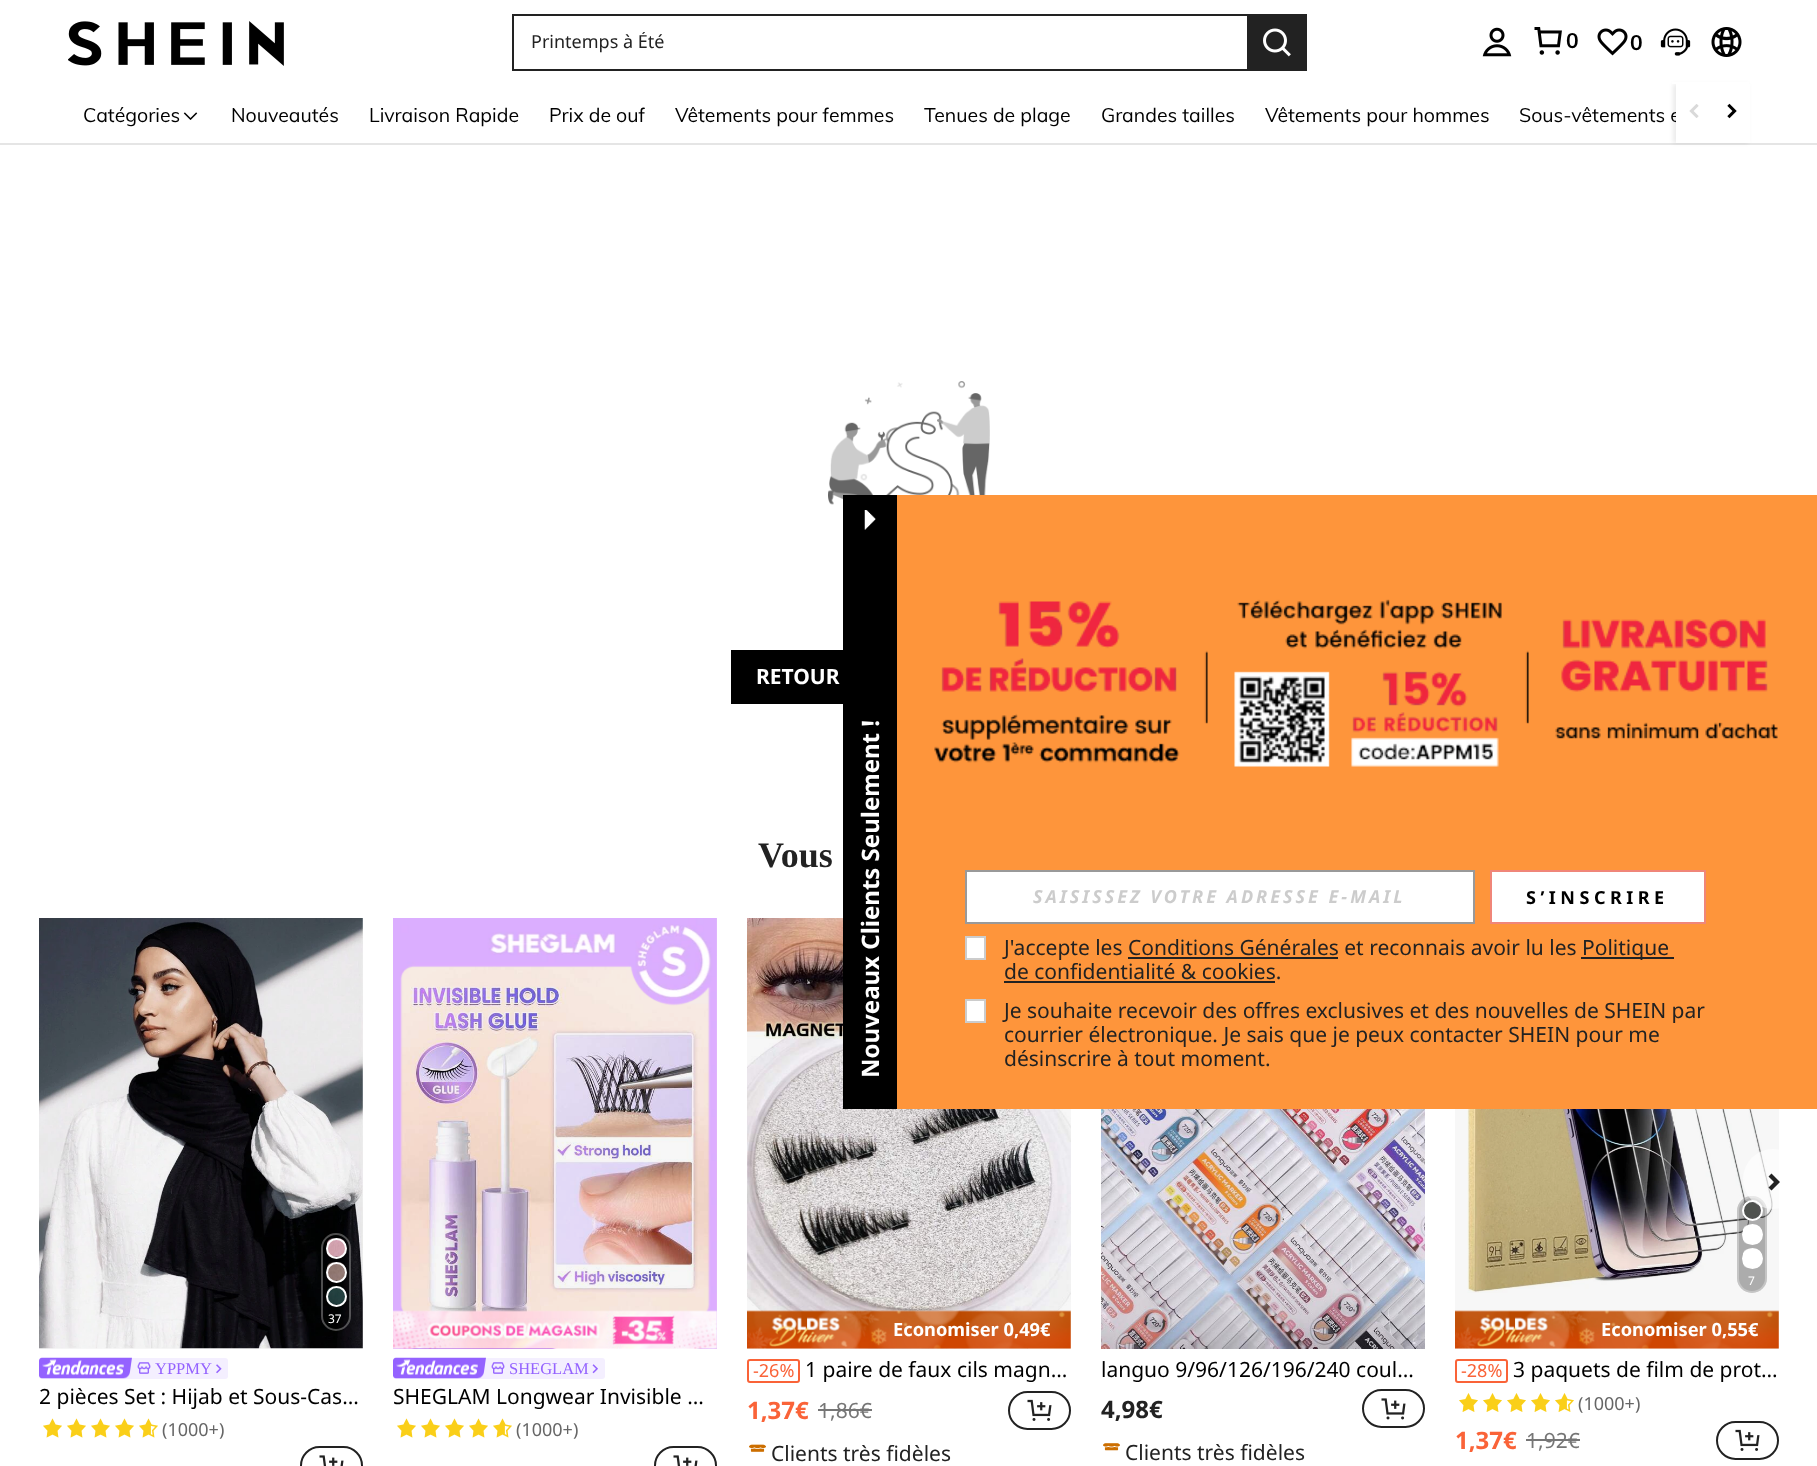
<!DOCTYPE html>
<meta charset="utf-8">
<style>body { margin: 0 } canvas { display: block }</style>
<canvas id="canvas" width="1817" height="1466"></canvas>
<img id="img1" src="img_01.png" hidden>
<img id="img2" src="img_02.png" hidden>
<img id="img3" src="img_03.png" hidden>
<img id="img4" src="img_04.png" hidden>
<img id="img5" src="img_05.png" hidden>
<img id="img6" src="img_06.png" hidden>
<img id="img7" src="img_07.png" hidden>
<img id="img8" src="img_08.png" hidden>
<img id="img9" src="img_11.png" hidden>
<img id="img10" src="img_33.png" hidden>
<img id="img11" src="img_34.png" hidden>
<img id="img12" src="img_12.png" hidden>
<img id="img13" src="img_13.png" hidden>
<img id="img14" src="img_14.png" hidden>
<img id="img15" src="img_15.png" hidden>
<img id="img16" src="img_16.png" hidden>
<img id="img17" src="img_17.png" hidden>
<img id="img18" src="img_18.png" hidden>
<img id="img19" src="img_19.png" hidden>
<img id="img20" src="img_20.png" hidden>
<img id="img21" src="img_21.png" hidden>
<img id="img22" src="img_23.png" hidden>
<img id="img23" src="img_22.png" hidden>
<img id="img24" src="img_24.png" hidden>
<img id="img25" src="img_25.png" hidden>
<img id="img26" src="img_26.png" hidden>
<img id="img27" src="img_27.png" hidden>
<img id="img28" src="img_28.png" hidden>
<img id="img29" src="img_29.png" hidden>
<img id="img30" src="img_30.png" hidden>
<img id="img31" src="img_31.png" hidden>
<img id="img32" src="img_32.png" hidden>
<img id="img33" src="img_35.png" hidden>
<img id="img34" src="img_36.png" hidden>
<img id="img35" src="img_37.png" hidden>
<img id="img36" src="img_38.png" hidden>
<img id="img37" src="img_39.png" hidden>
<img id="img38" src="img_40.png" hidden>
<img id="img39" src="img_41.png" hidden>
<img id="img40" src="img_09.png" hidden>
<img id="img41" src="img_10.png" hidden>
<script>
window.onload = function () {
	const canvas = document.getElementById("canvas");
	const ctx = canvas.getContext("2d");
	ctx.miterLimit = 4;
	ctx.fontKerning = "normal";
	function txt(s, x, y) {
		ctx.fillText(s, x, y);
	}
	function fill(x, y, w, h) {
		ctx.fillRect(x, y, w, h);
	}
	function round(x, y, w, h, r) {
		ctx.beginPath();
		ctx.roundRect(x, y, w, h, r);
		ctx.fill();
	}
	function img(id, x, y, w, h) {
		ctx.drawImage(document.getElementById(id), x, y, w, h);
	}

	ctx.fillStyle = "#FFFFFF";
	fill(0, 0, 1817, 1466);
	ctx.fillStyle = "#F7F7F7";
	fill(1455, 1109, 324, 240);
	fill(39, 1348, 324, 1);
	ctx.fillStyle = "#E5E5E5";
	fill(0, 143, 1817, 2);
	ctx.fillStyle = "rgba(0, 0, 0, 0.08)";
	ctx.filter = "blur(2px)";
	ctx.beginPath();
	ctx.rect(1673, 84, 75, 59);
	ctx.fill();
	ctx.filter = "none";
	ctx.fillStyle = "#FFFFFF";
	fill(1672, 82, 77, 2);
	img("img1", 68, 21, 216, 45);
	ctx.fillStyle = "#222222";
	fill(512, 14, 735, 2);
	fill(512, 69, 735, 2);
	fill(512, 14, 2, 57);
	fill(1247, 14, 60, 57);
	img("img2", 1263, 28, 28, 29);
	img("img3", 1482, 27, 30, 30);
	img("img4", 1534, 27, 28, 28);
	img("img5", 1597, 28, 31, 28);
	img("img6", 1660, 28, 31, 28);
	img("img7", 1711, 27, 31, 30);
	img("img8", 183, 112, 15, 8);
	img("img9", 828, 381, 162, 124);
	ctx.fillStyle = "#000000";
	fill(731, 650, 112, 54);
	img("img10", 1467, 1109, 306, 184);
	ctx.fillStyle = "rgba(0, 0, 0, 0.3)";
	round(1737, 1196, 30, 97, 15);
	ctx.beginPath();
	ctx.roundRect(1738, 1197, 28, 95, 14);
	ctx.strokeStyle = "rgba(255, 255, 255, 0.3)";
	ctx.lineWidth = 2;
	ctx.stroke();
	img("img11", 1743, 1201, 18, 19);
	ctx.beginPath();
	ctx.arc(1752.5, 1210.5, 9.5, 0, Math.PI * 2);
	ctx.strokeStyle = "#FFFFFF";
	ctx.stroke();
	ctx.fillStyle = "rgba(255, 255, 255, 0.6)";
	ctx.beginPath();
	ctx.arc(1773, 1179, 30, 0, Math.PI * 2);
	ctx.fill();
	ctx.fillStyle = "#222222";
	ctx.beginPath();
	ctx.moveTo(1771.5, 1173.5);
	ctx.lineTo(1780, 1182);
	ctx.lineTo(1771.5, 1190.5);
	ctx.lineTo(1768.5, 1187.5);
	ctx.lineTo(1774, 1182);
	ctx.lineTo(1768.5, 1176.5);
	ctx.closePath();
	ctx.fill("evenodd");
	img("img12", 39, 918, 324, 431);
	ctx.fillStyle = "rgba(0, 0, 0, 0.3)";
	round(321, 1233, 30, 98, 15);
	ctx.beginPath();
	ctx.roundRect(322, 1234, 28, 96, 14);
	ctx.strokeStyle = "rgba(255, 255, 255, 0.3)";
	ctx.stroke();
	img("img13", 327, 1238, 18, 20);
	ctx.beginPath();
	ctx.arc(336.5, 1248.5, 9.5, 0, Math.PI * 2);
	ctx.strokeStyle = "#FFFFFF";
	ctx.stroke();
	img("img14", 327, 1262, 18, 20);
	ctx.beginPath();
	ctx.arc(336.5, 1272.5, 9.5, 0, Math.PI * 2);
	ctx.stroke();
	img("img15", 327, 1286, 18, 20);
	ctx.beginPath();
	ctx.arc(336.5, 1296.5, 9.5, 0, Math.PI * 2);
	ctx.stroke();
	ctx.fillStyle = "#F4EFFF";
	round(39, 1358, 189, 21, 3);
	img("img16", 39, 1357, 93, 22);
	img("img17", 137, 1362, 14, 12);
	img("img18", 216, 1364, 6, 10);
	img("img19", 43, 1418, 19, 20);
	img("img19", 67, 1418, 19, 20);
	img("img19", 91, 1418, 19, 20);
	img("img19", 115, 1418, 19, 20);
	img("img20", 139, 1418, 19, 20);
	ctx.beginPath();
	ctx.roundRect(301, 1447, 61, 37, 18.5);
	ctx.strokeStyle = "#222222";
	ctx.stroke();
	img("img21", 319, 1455, 25, 11);
	img("img22", 400, 918, 317, 431);
	img("img23", 393, 918, 324, 431);
	img("img24", 393, 1310, 324, 39);
	round(393, 1358, 212, 21, 3);
	img("img16", 393, 1357, 93, 22);
	img("img17", 491, 1362, 14, 12);
	img("img25", 592, 1364, 6, 10);
	img("img19", 397, 1418, 19, 20);
	img("img19", 421, 1418, 19, 20);
	img("img19", 445, 1418, 19, 20);
	img("img19", 469, 1418, 19, 20);
	img("img20", 493, 1418, 19, 20);
	ctx.beginPath();
	ctx.roundRect(655, 1447, 61, 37, 18.5);
	ctx.stroke();
	img("img21", 673, 1455, 25, 11);
	img("img26", 747, 918, 324, 431);
	img("img27", 747, 1310, 324, 39);
	ctx.beginPath();
	ctx.roundRect(748, 1360, 51, 22, 2);
	ctx.strokeStyle = "#FA6338";
	ctx.stroke();
	ctx.fillStyle = "#767676";
	fill(818, 1409, 54, 2);
	ctx.beginPath();
	ctx.roundRect(1009, 1392, 61, 37, 18.5);
	ctx.strokeStyle = "#222222";
	ctx.stroke();
	img("img28", 1027, 1399, 25, 22);
	img("img29", 749, 1444, 17, 8);
	img("img30", 1101, 1109, 324, 240);
	ctx.beginPath();
	ctx.roundRect(1363, 1390, 61, 37, 18.5);
	ctx.stroke();
	img("img31", 1381, 1398, 25, 22);
	img("img32", 1103, 1443, 17, 8);
	img("img33", 1743, 1225, 18, 19);
	ctx.beginPath();
	ctx.arc(1752.5, 1234.5, 9.5, 0, Math.PI * 2);
	ctx.strokeStyle = "#FFFFFF";
	ctx.stroke();
	img("img34", 1743, 1249, 18, 19);
	ctx.beginPath();
	ctx.arc(1752.5, 1258.5, 9.5, 0, Math.PI * 2);
	ctx.stroke();
	img("img35", 1455, 1310, 324, 39);
	ctx.beginPath();
	ctx.roundRect(1456, 1360, 51, 22, 2);
	ctx.strokeStyle = "#FA6338";
	ctx.stroke();
	img("img36", 1459, 1393, 19, 19);
	img("img36", 1483, 1393, 19, 19);
	img("img36", 1507, 1393, 19, 19);
	img("img36", 1531, 1393, 19, 19);
	img("img37", 1555, 1393, 19, 19);
	fill(1526, 1439, 54, 2);
	ctx.beginPath();
	ctx.roundRect(1717, 1422, 61, 37, 18.5);
	ctx.strokeStyle = "#222222";
	ctx.stroke();
	img("img28", 1735, 1429, 25, 22);
	ctx.fillStyle = "#000000";
	fill(843, 495, 54, 614);
	img("img38", 864, 510, 12, 20);
	ctx.fillStyle = "#FE953B";
	fill(897, 495, 920, 614);
	img("img39", 934, 599, 844, 168);
	ctx.fillStyle = "#FFFFFF";
	ctx.beginPath();
	ctx.rect(966, 871, 508, 52);
	ctx.fill();
	ctx.strokeStyle = "#999999";
	ctx.stroke();
	ctx.beginPath();
	ctx.rect(1491, 871, 214, 52);
	ctx.fill();
	ctx.strokeStyle = "#F08679";
	ctx.stroke();
	ctx.beginPath();
	ctx.rect(966, 937, 19, 22);
	ctx.fill();
	ctx.strokeStyle = "#CCCCCC";
	ctx.stroke();
	ctx.fillStyle = "#222222";
	fill(1128, 957, 210, 2);
	fill(1581, 957, 93, 2);
	fill(1004, 981, 271, 2);
	ctx.fillStyle = "#FFFFFF";
	ctx.beginPath();
	ctx.rect(966, 1000, 19, 22);
	ctx.fill();
	ctx.stroke();
	ctx.save();
	ctx.beginPath();
	ctx.rect(531, 32, 134, 21);
	ctx.clip();
	ctx.font = "18px Noto Sans";
	ctx.fillStyle = "#222222";
	txt("Printemps à Été", 531, 48);
	ctx.restore();
	ctx.font = "bold 21px Muli";
	ctx.fillStyle = "#000000";
	txt("0", 1566, 48);
	txt("0", 1630, 50);
	ctx.font = "19.5px Muli";
	txt("Catégories", 83, 122);
	txt("Nouveautés", 231, 122);
	txt("Livraison Rapide", 369, 122);
	txt("Prix de ouf", 549, 122);
	txt("Vêtements pour femmes", 675, 122);
	txt("Tenues de plage", 924, 122);
	txt("Grandes tailles", 1101, 122);
	txt("Vêtements pour hommes", 1265, 122);
	txt("Sous-vêtements e", 1519, 122);
	ctx.fillStyle = "#FFFFFF";
	fill(1676, 84, 74, 59);
	img("img40", 1689, 104, 10, 14);
	img("img41", 1727, 103, 10, 16);
	ctx.font = "bold 21px Noto Sans";
	txt("RETOUR", 756, 684);
	ctx.font = "bold 36px Liberation Serif";
	ctx.fillStyle = "#222222";
	txt("Vous", 758, 867);
	ctx.font = "12px Noto Sans";
	ctx.fillStyle = "#FFFFFF";
	txt("37", 328, 1323);
	ctx.font = "16.5px Liberation Serif";
	ctx.fillStyle = "#9462FF";
	txt("YPPMY", 155, 1374);
	ctx.font = "21px Noto Sans";
	ctx.fillStyle = "#000000";
	txt("2 pièces Set : Hijab et Sous-Cas…", 39, 1404);
	ctx.font = "18px Noto Sans";
	ctx.fillStyle = "#666666";
	txt("(1000+)", 162, 1436);
	ctx.font = "16.5px Liberation Serif";
	ctx.fillStyle = "#9462FF";
	txt("SHEGLAM", 509, 1374);
	ctx.font = "21px Noto Sans";
	ctx.fillStyle = "#000000";
	txt("SHEGLAM Longwear Invisible …", 393, 1404);
	ctx.font = "18px Noto Sans";
	ctx.fillStyle = "#666666";
	txt("(1000+)", 516, 1436);
	ctx.save();
	ctx.beginPath();
	ctx.rect(894, 1322, 156, 18);
	ctx.clip();
	ctx.font = "bold 18.25px Noto Sans";
	ctx.fillStyle = "#FFFFFF";
	txt("Économiser 0,49€", 893, 1336);
	ctx.restore();
	ctx.fillStyle = "#FA6338";
	txt("-26%", 753, 1377);
	ctx.font = "21px Noto Sans";
	ctx.fillStyle = "#000000";
	txt("1 paire de faux cils magn…", 805, 1377);
	ctx.font = "bold 24px Noto Sans";
	ctx.fillStyle = "#FA6338";
	txt("1,37€", 747, 1419);
	ctx.font = "21px Noto Sans";
	ctx.fillStyle = "#767676";
	txt("1,86€", 818, 1418);
	ctx.fillStyle = "#222222";
	txt("Clients très fidèles", 771, 1461);
	ctx.fillStyle = "#000000";
	txt("languo 9/96/126/196/240 coul…", 1101, 1377);
	ctx.font = "bold 24px Noto Sans";
	ctx.fillStyle = "#222222";
	txt("4,98€", 1101, 1418);
	ctx.font = "21px Noto Sans";
	txt("Clients très fidèles", 1125, 1460);
	ctx.font = "12px Noto Sans";
	ctx.fillStyle = "#FFFFFF";
	txt("7", 1748, 1285);
	ctx.save();
	ctx.beginPath();
	ctx.rect(1602, 1322, 156, 18);
	ctx.clip();
	ctx.font = "bold 18.25px Noto Sans";
	txt("Économiser 0,55€", 1601, 1336);
	ctx.restore();
	ctx.font = "18px Noto Sans";
	ctx.fillStyle = "#FA6338";
	txt("-28%", 1461, 1377);
	ctx.font = "21px Noto Sans";
	ctx.fillStyle = "#000000";
	txt("3 paquets de film de prot…", 1513, 1377);
	ctx.font = "18px Noto Sans";
	ctx.fillStyle = "#666666";
	txt("(1000+)", 1578, 1410);
	ctx.font = "bold 24px Noto Sans";
	ctx.fillStyle = "#FA6338";
	txt("1,37€", 1455, 1449);
	ctx.font = "21px Noto Sans";
	ctx.fillStyle = "#767676";
	txt("1,92€", 1526, 1448);
	ctx.font = "bold 24px Noto Sans";
	ctx.fillStyle = "#FFFFFF";
	ctx.save();
	ctx.translate(879, 1078);
	ctx.rotate(-90 * Math.PI / 180);
	ctx.fillText("Nouveaux Clients Seulement !", 0, 0);
	ctx.restore();
	ctx.letterSpacing = "3px";
	ctx.font = "italic bold 18px Noto Sans";
	ctx.fillStyle = "#CCCCCC";
	txt("SAISISSEZ VOTRE ADRESSE E-MAIL", 1033, 903);
	ctx.letterSpacing = "4.5px";
	ctx.font = "bold 18px Noto Sans";
	ctx.fillStyle = "#000000";
	txt("S’INSCRIRE", 1526, 904);
	ctx.letterSpacing = "0px";
	ctx.font = "21px Noto Sans";
	ctx.fillStyle = "#222222";
	txt("J'accepte les Conditions Générales et reconnais avoir lu les", 1004, 955);
	txt("Politique", 1582, 955);
	txt("de confidentialité & cookies.", 1004, 979);
	txt("Je souhaite recevoir des offres exclusives et des nouvelles de SHEIN par", 1004, 1018);
	txt("courrier électronique. Je sais que je peux contacter SHEIN pour me", 1004, 1042);
	txt("désinscrire à tout moment.", 1004, 1066);
};
</script>
